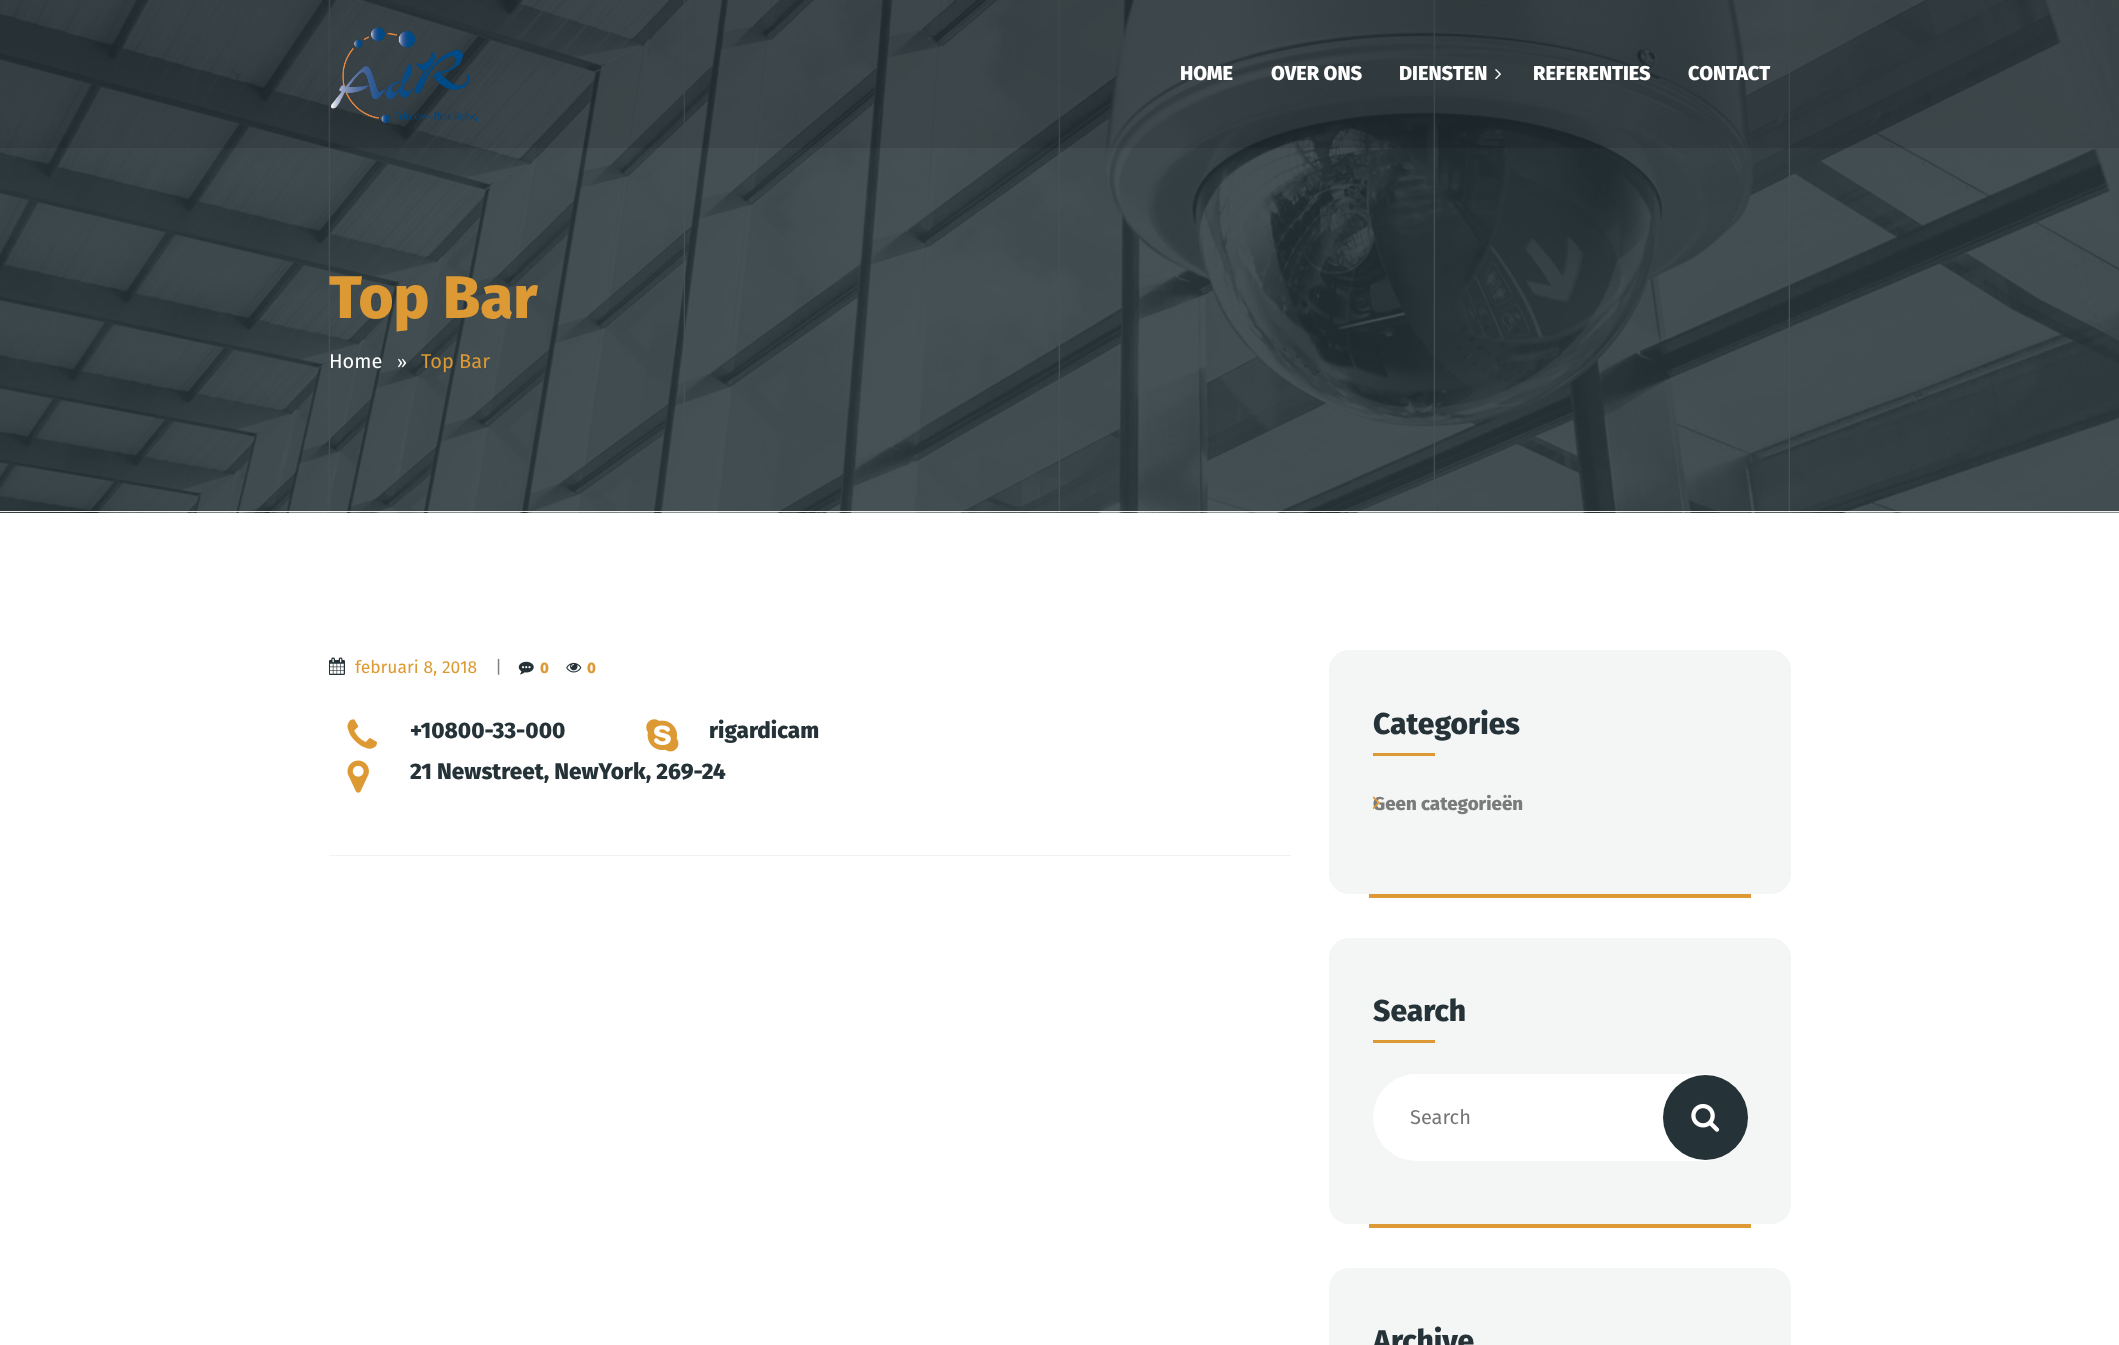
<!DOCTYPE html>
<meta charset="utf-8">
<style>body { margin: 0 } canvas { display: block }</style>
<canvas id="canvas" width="2119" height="1345"></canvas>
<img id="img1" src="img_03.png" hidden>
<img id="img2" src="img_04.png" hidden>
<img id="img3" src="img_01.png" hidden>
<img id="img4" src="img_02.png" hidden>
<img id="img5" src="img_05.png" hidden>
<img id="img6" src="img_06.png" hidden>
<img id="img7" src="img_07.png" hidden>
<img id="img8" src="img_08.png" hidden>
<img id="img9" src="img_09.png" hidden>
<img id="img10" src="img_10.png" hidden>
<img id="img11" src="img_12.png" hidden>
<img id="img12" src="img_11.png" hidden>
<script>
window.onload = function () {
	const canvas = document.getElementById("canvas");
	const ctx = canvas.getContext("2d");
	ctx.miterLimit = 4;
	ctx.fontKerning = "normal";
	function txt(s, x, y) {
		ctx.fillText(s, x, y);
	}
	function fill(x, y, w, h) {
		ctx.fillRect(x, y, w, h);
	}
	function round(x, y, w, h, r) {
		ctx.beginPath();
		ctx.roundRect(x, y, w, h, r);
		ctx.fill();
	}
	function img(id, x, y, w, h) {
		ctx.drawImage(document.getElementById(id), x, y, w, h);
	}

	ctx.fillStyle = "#FFFFFF";
	fill(0, 0, 2119, 1345);
	ctx.fillStyle = "#253237";
	fill(0, 512, 2119, 1);
	img("img1", 0, 0, 2119, 513);
	ctx.fillStyle = "#EEEEEE";
	fill(0, 511, 2119, 1);
	img("img2", 328, 0, 1462, 512);
	ctx.fillStyle = "rgba(0, 0, 0, 0.1)";
	fill(0, 0, 2119, 148);
	img("img3", 331, 27, 146, 96);
	img("img4", 1495, 69, 6, 11);
	img("img5", 329, 657, 16, 18);
	img("img6", 518, 661, 16, 14);
	img("img7", 566, 662, 16, 11);
	img("img8", 347, 719, 30, 30);
	img("img9", 646, 719, 33, 33);
	img("img10", 347, 760, 22, 33);
	ctx.fillStyle = "#F2F2F2";
	fill(329, 855, 962, 1);
	ctx.fillStyle = "#F4F5F5";
	round(1329, 650, 462, 244, 20);
	ctx.fillStyle = "#DD9933";
	fill(1373, 753, 62, 3);
	fill(1369, 894, 382, 4);
	ctx.fillStyle = "#F4F5F5";
	round(1329, 938, 462, 286, 20);
	ctx.fillStyle = "#DD9933";
	fill(1373, 1040, 62, 3);
	ctx.fillStyle = "#FFFFFF";
	round(1373, 1074, 375, 87, 43.5);
	ctx.fillStyle = "#253237";
	ctx.beginPath();
	ctx.arc(1705.5, 1117.5, 42.5, 0, Math.PI * 2);
	ctx.fill();
	img("img11", 1691, 1103, 29, 29);
	ctx.fillStyle = "#DD9933";
	fill(1369, 1224, 382, 4);
	ctx.fillStyle = "#F4F5F5";
	round(1329, 1268, 462, 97, 20);
	ctx.font = "800 20px Fira Sans";
	ctx.fillStyle = "#FFFFFF";
	txt("HOME", 1180, 80);
	txt("OVER ONS", 1271, 80);
	txt("DIENSTEN", 1399, 80);
	txt("REFERENTIES", 1533, 80);
	txt("CONTACT", 1688, 80);
	ctx.font = "800 60px Fira Sans";
	ctx.fillStyle = "#DD9933";
	txt("Top Bar", 329, 318);
	ctx.font = "20px Fira Sans";
	ctx.fillStyle = "#FFFFFF";
	txt("Home", 329, 368);
	ctx.font = "17.5px Fira Sans";
	txt("»", 397, 368);
	ctx.font = "20px Fira Sans";
	ctx.fillStyle = "#DD9933";
	txt("Top Bar", 421, 368);
	ctx.font = "17.5px Fira Sans";
	txt("februari 8, 2018", 355, 673);
	ctx.fillStyle = "#808080";
	txt("|", 495, 673);
	ctx.font = "800 15px Fira Sans";
	ctx.fillStyle = "#DD9933";
	txt("0", 540, 673);
	txt("0", 587, 673);
	ctx.font = "800 22.5px Fira Sans";
	ctx.fillStyle = "#253237";
	txt("+10800-33-000", 410, 738);
	txt("rigardicam", 709, 738);
	txt("21 Newstreet, NewYork, 269-24", 410, 779);
	ctx.font = "800 30px Fira Sans";
	txt("Categories", 1373, 734);
	ctx.font = "800 18.75px Fira Sans";
	ctx.fillStyle = "#7A7B7B";
	txt("Geen categorieën", 1373, 810);
	img("img12", 1372, 796, 8, 13);
	ctx.font = "800 30px Fira Sans";
	ctx.fillStyle = "#253237";
	txt("Search", 1373, 1021);
	ctx.font = "20px Fira Sans";
	ctx.fillStyle = "#757575";
	txt("Search", 1410, 1124);
	ctx.font = "800 30px Fira Sans";
	ctx.fillStyle = "#253237";
	txt("Archive", 1373, 1351);
};
</script>
